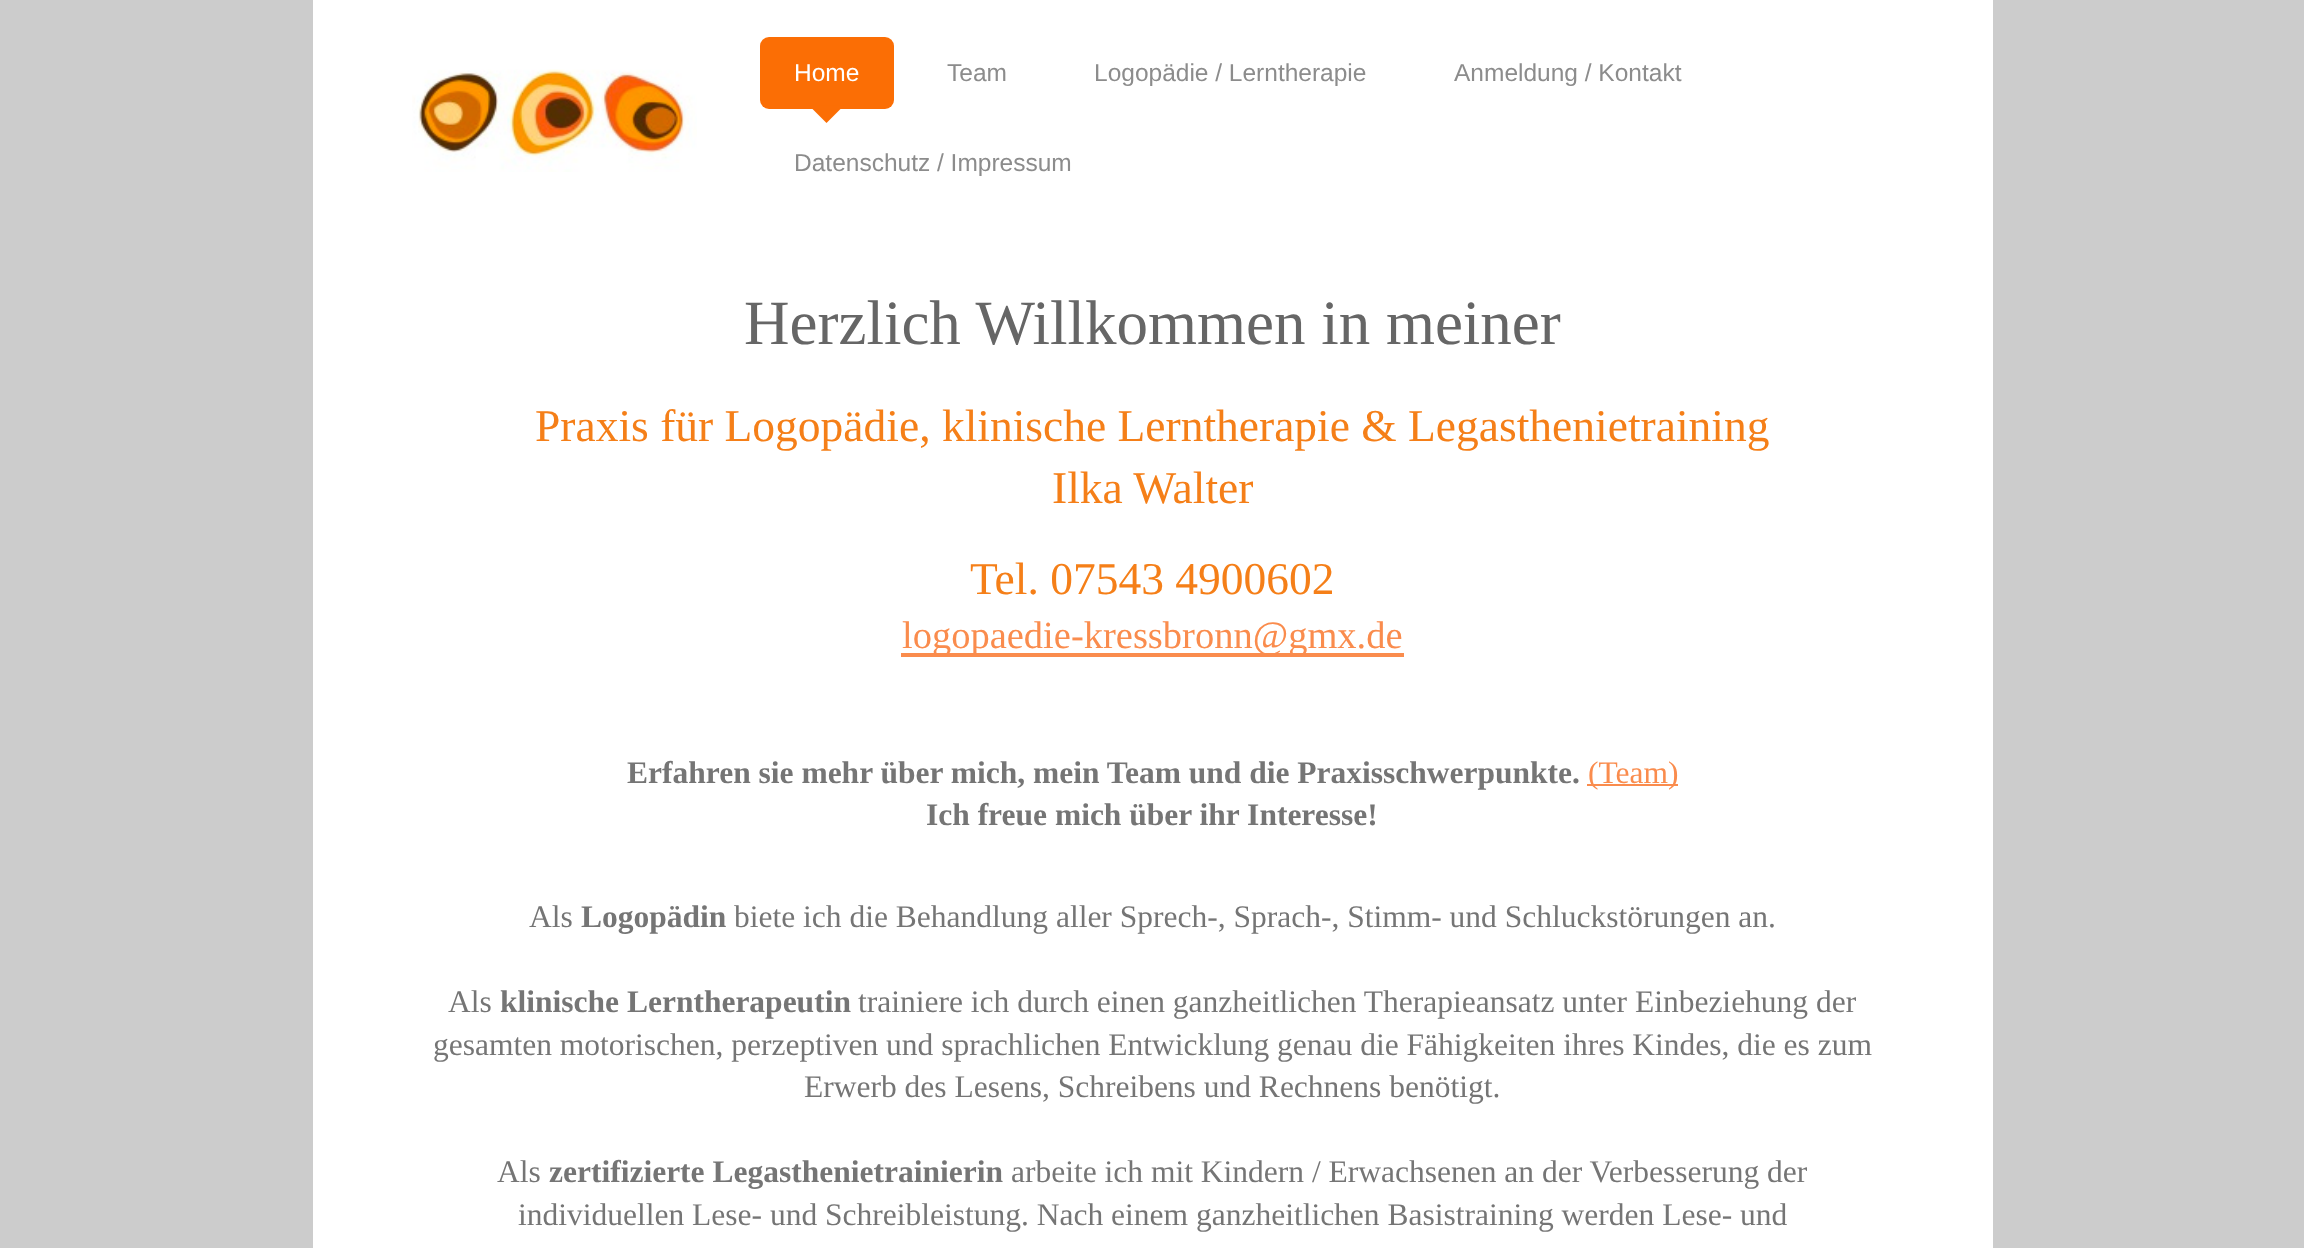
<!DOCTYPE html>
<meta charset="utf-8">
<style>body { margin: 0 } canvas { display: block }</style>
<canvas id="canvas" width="2304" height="1248"></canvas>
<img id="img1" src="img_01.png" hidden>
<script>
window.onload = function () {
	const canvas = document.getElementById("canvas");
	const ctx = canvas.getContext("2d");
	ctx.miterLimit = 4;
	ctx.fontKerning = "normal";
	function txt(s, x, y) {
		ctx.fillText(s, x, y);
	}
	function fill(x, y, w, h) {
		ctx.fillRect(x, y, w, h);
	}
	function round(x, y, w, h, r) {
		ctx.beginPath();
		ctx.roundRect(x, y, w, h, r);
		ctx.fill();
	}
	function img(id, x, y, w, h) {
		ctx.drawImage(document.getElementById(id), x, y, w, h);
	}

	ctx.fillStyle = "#CCCCCC";
	fill(0, 0, 2304, 1248);
	ctx.fillStyle = "#FFFFFF";
	fill(313, 0, 1680, 1248);
	img("img1", 412, 69, 285, 103);
	ctx.fillStyle = "#FB6E05";
	round(760, 37, 134, 72, 9);
	ctx.beginPath();
	ctx.moveTo(809, 105.5);
	ctx.lineTo(844, 105.5);
	ctx.lineTo(826.5, 123);
	ctx.closePath();
	ctx.fill();
	ctx.fillStyle = "#FA8C4D";
	fill(901, 653, 503, 4);
	fill(1587, 784, 91, 2);
	ctx.font = "24.5px Liberation Sans";
	ctx.fillStyle = "#FFFFFF";
	txt("Home", 794, 81);
	ctx.fillStyle = "#8C8C8C";
	txt("Team", 947, 81);
	txt("Logopädie / Lerntherapie", 1094, 81);
	txt("Anmeldung / Kontakt", 1454, 81);
	txt("Datenschutz / Impressum", 794, 171);
	ctx.font = "63px Liberation Serif";
	ctx.fillStyle = "#666666";
	txt("Herzlich Willkommen in meiner", 744, 344);
	ctx.font = "45.5px Liberation Serif";
	ctx.fillStyle = "#F57F18";
	txt("Praxis für Logopädie, klinische Lerntherapie & Legasthenietraining", 535, 441);
	txt("Ilka Walter", 1052, 503);
	txt("Tel. 07543 4900602", 970, 594);
	ctx.font = "38.5px Liberation Serif";
	ctx.fillStyle = "#FA8C4D";
	txt("logopaedie-kressbronn@gmx.de", 902, 648);
	ctx.font = "bold 31.5px Liberation Serif";
	ctx.fillStyle = "#757575";
	txt("Erfahren sie mehr über mich, mein Team und die Praxisschwerpunkte.", 627, 783);
	ctx.font = "31.5px Liberation Serif";
	ctx.fillStyle = "#FA8C4D";
	txt("(Team)", 1588, 783);
	ctx.font = "bold 31.5px Liberation Serif";
	ctx.fillStyle = "#757575";
	txt("Ich freue mich über ihr Interesse!", 926, 825);
	ctx.font = "31.5px Liberation Serif";
	txt("Als", 529, 927);
	ctx.font = "bold 31.5px Liberation Serif";
	txt("Logopädin", 581, 927);
	ctx.font = "31.5px Liberation Serif";
	txt("biete ich die Behandlung aller Sprech-, Sprach-, Stimm- und Schluckstörungen an.", 734, 927);
	txt("Als", 448, 1012);
	ctx.font = "bold 31.5px Liberation Serif";
	txt("klinische Lerntherapeutin", 500, 1012);
	ctx.font = "31.5px Liberation Serif";
	txt("trainiere ich durch einen ganzheitlichen Therapieansatz unter Einbeziehung der", 858, 1012);
	txt("gesamten motorischen, perzeptiven und sprachlichen Entwicklung genau die Fähigkeiten ihres Kindes, die es zum", 433, 1055);
	txt("Erwerb des Lesens, Schreibens und Rechnens benötigt.", 804, 1097);
	txt("Als", 497, 1182);
	ctx.font = "bold 31.5px Liberation Serif";
	txt("zertifizierte Legasthenietrainierin", 549, 1182);
	ctx.font = "31.5px Liberation Serif";
	txt("arbeite ich mit Kindern / Erwachsenen an der Verbesserung der", 1011, 1182);
	txt("individuellen Lese- und Schreibleistung. Nach einem ganzheitlichen Basistraining werden Lese- und", 518, 1225);
};
</script>
